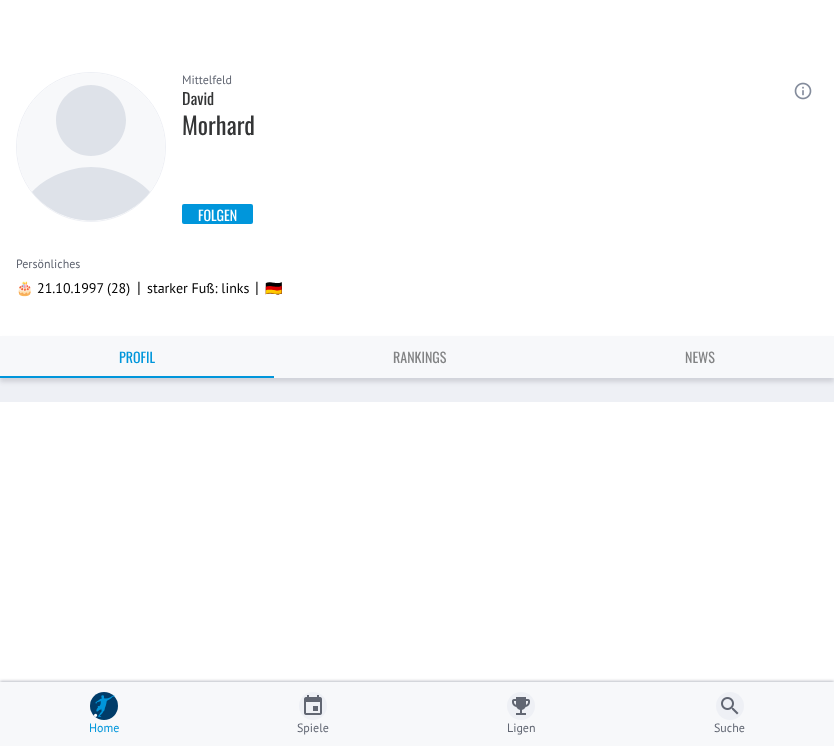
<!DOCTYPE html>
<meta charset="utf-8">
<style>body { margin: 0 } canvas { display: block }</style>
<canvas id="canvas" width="834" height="746"></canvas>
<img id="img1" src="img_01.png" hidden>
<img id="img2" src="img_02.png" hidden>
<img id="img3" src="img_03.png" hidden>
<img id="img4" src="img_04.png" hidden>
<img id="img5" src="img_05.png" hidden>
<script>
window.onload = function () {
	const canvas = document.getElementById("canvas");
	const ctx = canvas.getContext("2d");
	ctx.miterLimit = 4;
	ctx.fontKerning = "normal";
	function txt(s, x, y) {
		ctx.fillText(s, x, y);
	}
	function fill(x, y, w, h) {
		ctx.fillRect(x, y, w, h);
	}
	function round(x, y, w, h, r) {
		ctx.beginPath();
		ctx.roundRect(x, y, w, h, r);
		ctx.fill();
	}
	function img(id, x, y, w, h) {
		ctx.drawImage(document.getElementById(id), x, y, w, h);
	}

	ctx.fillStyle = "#EEF0F5";
	fill(0, 0, 834, 746);
	ctx.fillStyle = "#FFFFFF";
	fill(0, 0, 834, 336);
	ctx.beginPath();
	ctx.arc(91, 147, 74.5, 0, Math.PI * 2);
	ctx.strokeStyle = "#EEF0F5";
	ctx.stroke();
	ctx.fillStyle = "#F7F8FA";
	ctx.beginPath();
	ctx.arc(91, 147, 74, 0, Math.PI * 2);
	ctx.fill();
	ctx.fillStyle = "#DEE2E9";
	ctx.beginPath();
	ctx.moveTo(91, 167);
	ctx.bezierCurveTo(113, 167, 138, 178, 150, 192);
	ctx.bezierCurveTo(120, 230, 62, 230, 32, 192);
	ctx.bezierCurveTo(44, 178, 69, 167, 91, 167);
	ctx.closePath();
	ctx.moveTo(91, 156);
	ctx.bezierCurveTo(72, 156, 56, 140, 56, 120);
	ctx.bezierCurveTo(56, 101, 72, 85, 91, 85);
	ctx.bezierCurveTo(110, 85, 126, 101, 126, 120);
	ctx.bezierCurveTo(126, 140, 110, 156, 91, 156);
	ctx.closePath();
	ctx.fill("evenodd");
	img("img1", 794, 82, 18, 18);
	ctx.fillStyle = "#0096DB";
	round(182, 204, 71, 20, 2);
	ctx.fillStyle = "rgba(188, 190, 198, 0.6)";
	ctx.filter = "blur(2px)";
	ctx.beginPath();
	ctx.rect(0, 340, 834, 42);
	ctx.fill();
	ctx.filter = "none";
	ctx.fillStyle = "#F7F8FA";
	fill(0, 336, 834, 42);
	ctx.fillStyle = "#0096DB";
	fill(0, 376, 274, 2);
	ctx.fillStyle = "#FFFFFF";
	fill(0, 402, 834, 280);
	ctx.fillStyle = "#BCBEC6";
	ctx.filter = "blur(1.5px)";
	ctx.beginPath();
	ctx.rect(0, 681, 834, 64);
	ctx.fill();
	ctx.filter = "none";
	ctx.fillStyle = "#F7F8FA";
	fill(0, 682, 834, 64);
	ctx.fillStyle = "#003C69";
	ctx.beginPath();
	ctx.arc(104, 706, 14, 0, Math.PI * 2);
	ctx.fill();
	img("img2", 94, 695, 21, 22);
	ctx.fillStyle = "#EEF0F5";
	ctx.beginPath();
	ctx.arc(313, 706, 14, 0, Math.PI * 2);
	ctx.fill();
	img("img3", 304, 695, 18, 20);
	ctx.beginPath();
	ctx.arc(521, 706, 14, 0, Math.PI * 2);
	ctx.fill();
	img("img4", 512, 697, 18, 18);
	ctx.beginPath();
	ctx.arc(730, 706, 14, 0, Math.PI * 2);
	ctx.fill();
	img("img5", 721, 697, 18, 18);
	ctx.font = "12px PT Sans";
	ctx.fillStyle = "#616672";
	txt("Mittelfeld", 182, 84);
	ctx.font = "16px Oswald";
	ctx.fillStyle = "#343536";
	txt("David", 182, 105);
	ctx.font = "24px Oswald";
	txt("Morhard", 182, 135);
	ctx.font = "14px Oswald";
	ctx.fillStyle = "#FFFFFF";
	txt("FOLGEN", 198, 221);
	ctx.font = "12px PT Sans";
	ctx.fillStyle = "#616672";
	txt("Persönliches", 16, 268);
	ctx.font = "14px Noto Color Emoji";
	ctx.fillStyle = "#000000";
	txt("🎂", 16, 293);
	ctx.font = "14px PT Sans";
	txt("21.10.1997 (28)", 37, 293);
	ctx.font = "16px PT Sans";
	txt("|", 137, 293);
	ctx.font = "14px PT Sans";
	txt("starker Fuß: links", 147, 293);
	ctx.font = "16px PT Sans";
	txt("|", 255, 293);
	ctx.font = "14px Noto Color Emoji";
	txt("🇩🇪", 265, 293);
	ctx.font = "14px Oswald";
	ctx.fillStyle = "#0096DB";
	txt("PROFIL", 119, 363);
	ctx.fillStyle = "#828384";
	txt("RANKINGS", 393, 363);
	txt("NEWS", 685, 363);
	ctx.font = "12px PT Sans";
	ctx.fillStyle = "#0096DB";
	txt("Home", 89, 732);
	ctx.fillStyle = "#616672";
	txt("Spiele", 297, 732);
	txt("Ligen", 507, 732);
	txt("Suche", 714, 732);
};
</script>
